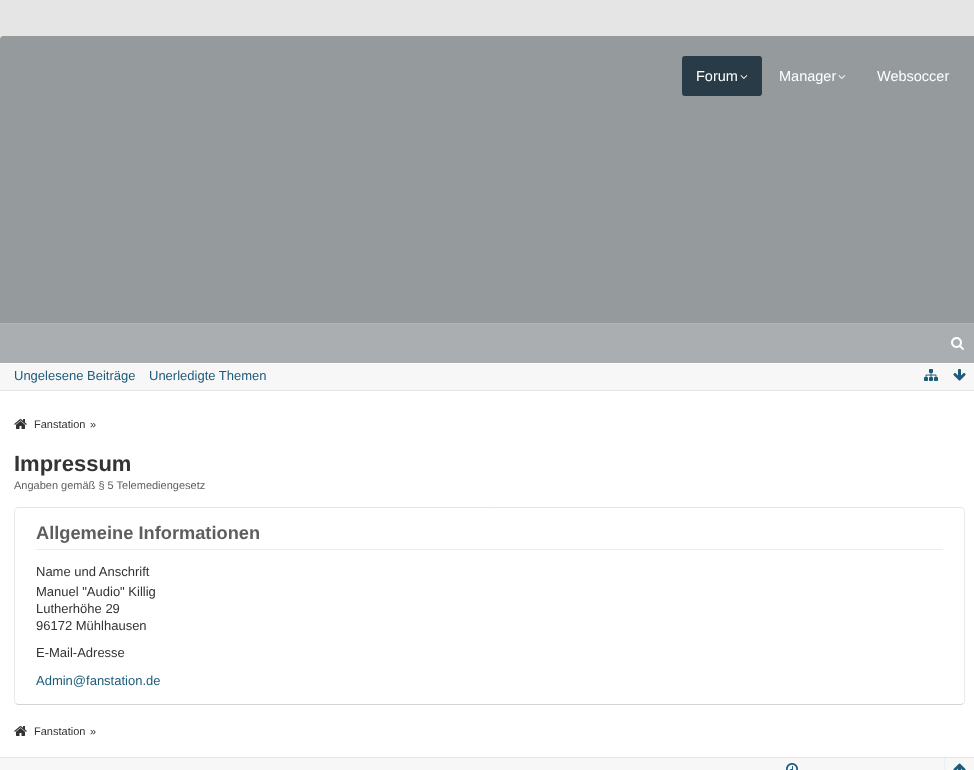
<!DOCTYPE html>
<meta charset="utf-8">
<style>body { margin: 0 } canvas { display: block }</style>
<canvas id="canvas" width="974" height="770"></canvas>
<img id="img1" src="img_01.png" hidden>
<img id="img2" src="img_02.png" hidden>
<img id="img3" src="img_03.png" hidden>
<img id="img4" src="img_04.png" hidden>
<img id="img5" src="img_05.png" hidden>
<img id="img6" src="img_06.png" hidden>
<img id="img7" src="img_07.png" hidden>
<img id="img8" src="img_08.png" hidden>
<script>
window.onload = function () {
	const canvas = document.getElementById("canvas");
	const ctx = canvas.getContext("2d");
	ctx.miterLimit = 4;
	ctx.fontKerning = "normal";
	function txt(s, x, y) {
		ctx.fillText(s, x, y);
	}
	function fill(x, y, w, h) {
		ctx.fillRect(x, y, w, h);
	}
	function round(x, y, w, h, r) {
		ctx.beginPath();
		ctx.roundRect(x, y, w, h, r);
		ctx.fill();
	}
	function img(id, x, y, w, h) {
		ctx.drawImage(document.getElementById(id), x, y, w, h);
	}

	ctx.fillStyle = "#E5E5E5";
	fill(0, 0, 974, 770);
	ctx.fillStyle = "#959A9D";
	ctx.beginPath();
	ctx.moveTo(3, 36);
	ctx.lineTo(974, 36);
	ctx.bezierCurveTo(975.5, 36, 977, 37.5, 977, 39);
	ctx.lineTo(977, 391);
	ctx.lineTo(0, 391);
	ctx.lineTo(0, 39);
	ctx.bezierCurveTo(0, 37.5, 1.5, 36, 3, 36);
	ctx.closePath();
	ctx.fill();
	ctx.fillStyle = "#283B46";
	round(682, 56, 80, 40, 3);
	img("img1", 740, 75, 8, 4);
	img("img2", 838, 75, 8, 4);
	ctx.fillStyle = "#AAAEB1";
	fill(0, 324, 974, 39);
	ctx.fillStyle = "#B0B4B7";
	fill(0, 323, 974, 1);
	img("img3", 951, 337, 13, 13);
	ctx.fillStyle = "#F7F7F8";
	fill(0, 364, 974, 26);
	ctx.fillStyle = "#FFFFFF";
	fill(0, 363, 974, 1);
	ctx.fillStyle = "#E3E6E7";
	fill(0, 390, 974, 1);
	img("img4", 924, 369, 14, 12);
	img("img5", 953, 369, 13, 12);
	ctx.fillStyle = "#FFFFFF";
	fill(0, 391, 974, 366);
	img("img6", 14, 419, 13, 10);
	ctx.beginPath();
	ctx.moveTo(15.5, 508.5);
	ctx.lineTo(18, 507.5);
	ctx.lineTo(961, 507.5);
	ctx.lineTo(963.5, 508.5);
	ctx.strokeStyle = "#E3E6E7";
	ctx.stroke();
	ctx.beginPath();
	ctx.moveTo(963.5, 508.5);
	ctx.bezierCurveTo(964, 509, 964.5, 510, 964.5, 511);
	ctx.lineTo(964.5, 701);
	ctx.bezierCurveTo(964.5, 702, 964, 703, 963.5, 703.5);
	ctx.strokeStyle = "#E8EBEC";
	ctx.stroke();
	ctx.beginPath();
	ctx.moveTo(963.5, 703.5);
	ctx.lineTo(961, 704.5);
	ctx.lineTo(18, 704.5);
	ctx.lineTo(15.5, 703.5);
	ctx.strokeStyle = "#D0D5D7";
	ctx.stroke();
	ctx.beginPath();
	ctx.moveTo(15.5, 703.5);
	ctx.bezierCurveTo(15, 703, 14.5, 702, 14.5, 701);
	ctx.lineTo(14.5, 511);
	ctx.bezierCurveTo(14.5, 510, 15, 509, 15.5, 508.5);
	ctx.strokeStyle = "#E8EBEC";
	ctx.stroke();
	ctx.fillStyle = "#ECECEC";
	fill(36, 549, 907, 1);
	img("img6", 14, 726, 13, 10);
	ctx.fillStyle = "#F7F7F8";
	fill(0, 758, 974, 12);
	ctx.beginPath();
	ctx.moveTo(944.5, 758);
	ctx.lineTo(944.5, 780);
	ctx.strokeStyle = "#E3E6E7";
	ctx.setLineDash([1, 1]);
	ctx.stroke();
	img("img7", 786, 763, 12, 7);
	img("img8", 953, 763, 13, 7);
	ctx.font = "14.5px Liberation Sans";
	ctx.fillStyle = "#FFFFFF";
	txt("Forum", 696, 81);
	txt("Manager", 779, 81);
	txt("Websoccer", 877, 81);
	ctx.font = "13px Liberation Sans";
	ctx.fillStyle = "#1E5B7B";
	txt("Ungelesene Beiträge", 14, 380);
	txt("Unerledigte Themen", 149, 380);
	ctx.font = "11px Liberation Sans";
	ctx.fillStyle = "#333333";
	txt("Fanstation", 34, 428);
	txt("»", 90, 428);
	ctx.font = "bold 22px Liberation Sans";
	txt("Impressum", 14, 471);
	ctx.font = "11px Liberation Sans";
	ctx.fillStyle = "#5E5E5E";
	txt("Angaben gemäß § 5 Telemediengesetz", 14, 489);
	ctx.font = "bold 18.25px Liberation Sans";
	txt("Allgemeine Informationen", 36, 539);
	ctx.font = "13px Liberation Sans";
	ctx.fillStyle = "#333333";
	txt("Name und Anschrift", 36, 576);
	txt("Manuel \"Audio\" Killig", 36, 596);
	txt("Lutherhöhe 29", 36, 613);
	txt("96172 Mühlhausen", 36, 630);
	txt("E-Mail-Adresse", 36, 657);
	ctx.fillStyle = "#1E5B7B";
	txt("Admin@fanstation.de", 36, 685);
	ctx.font = "11px Liberation Sans";
	ctx.fillStyle = "#333333";
	txt("Fanstation", 34, 735);
	txt("»", 90, 735);
};
</script>
